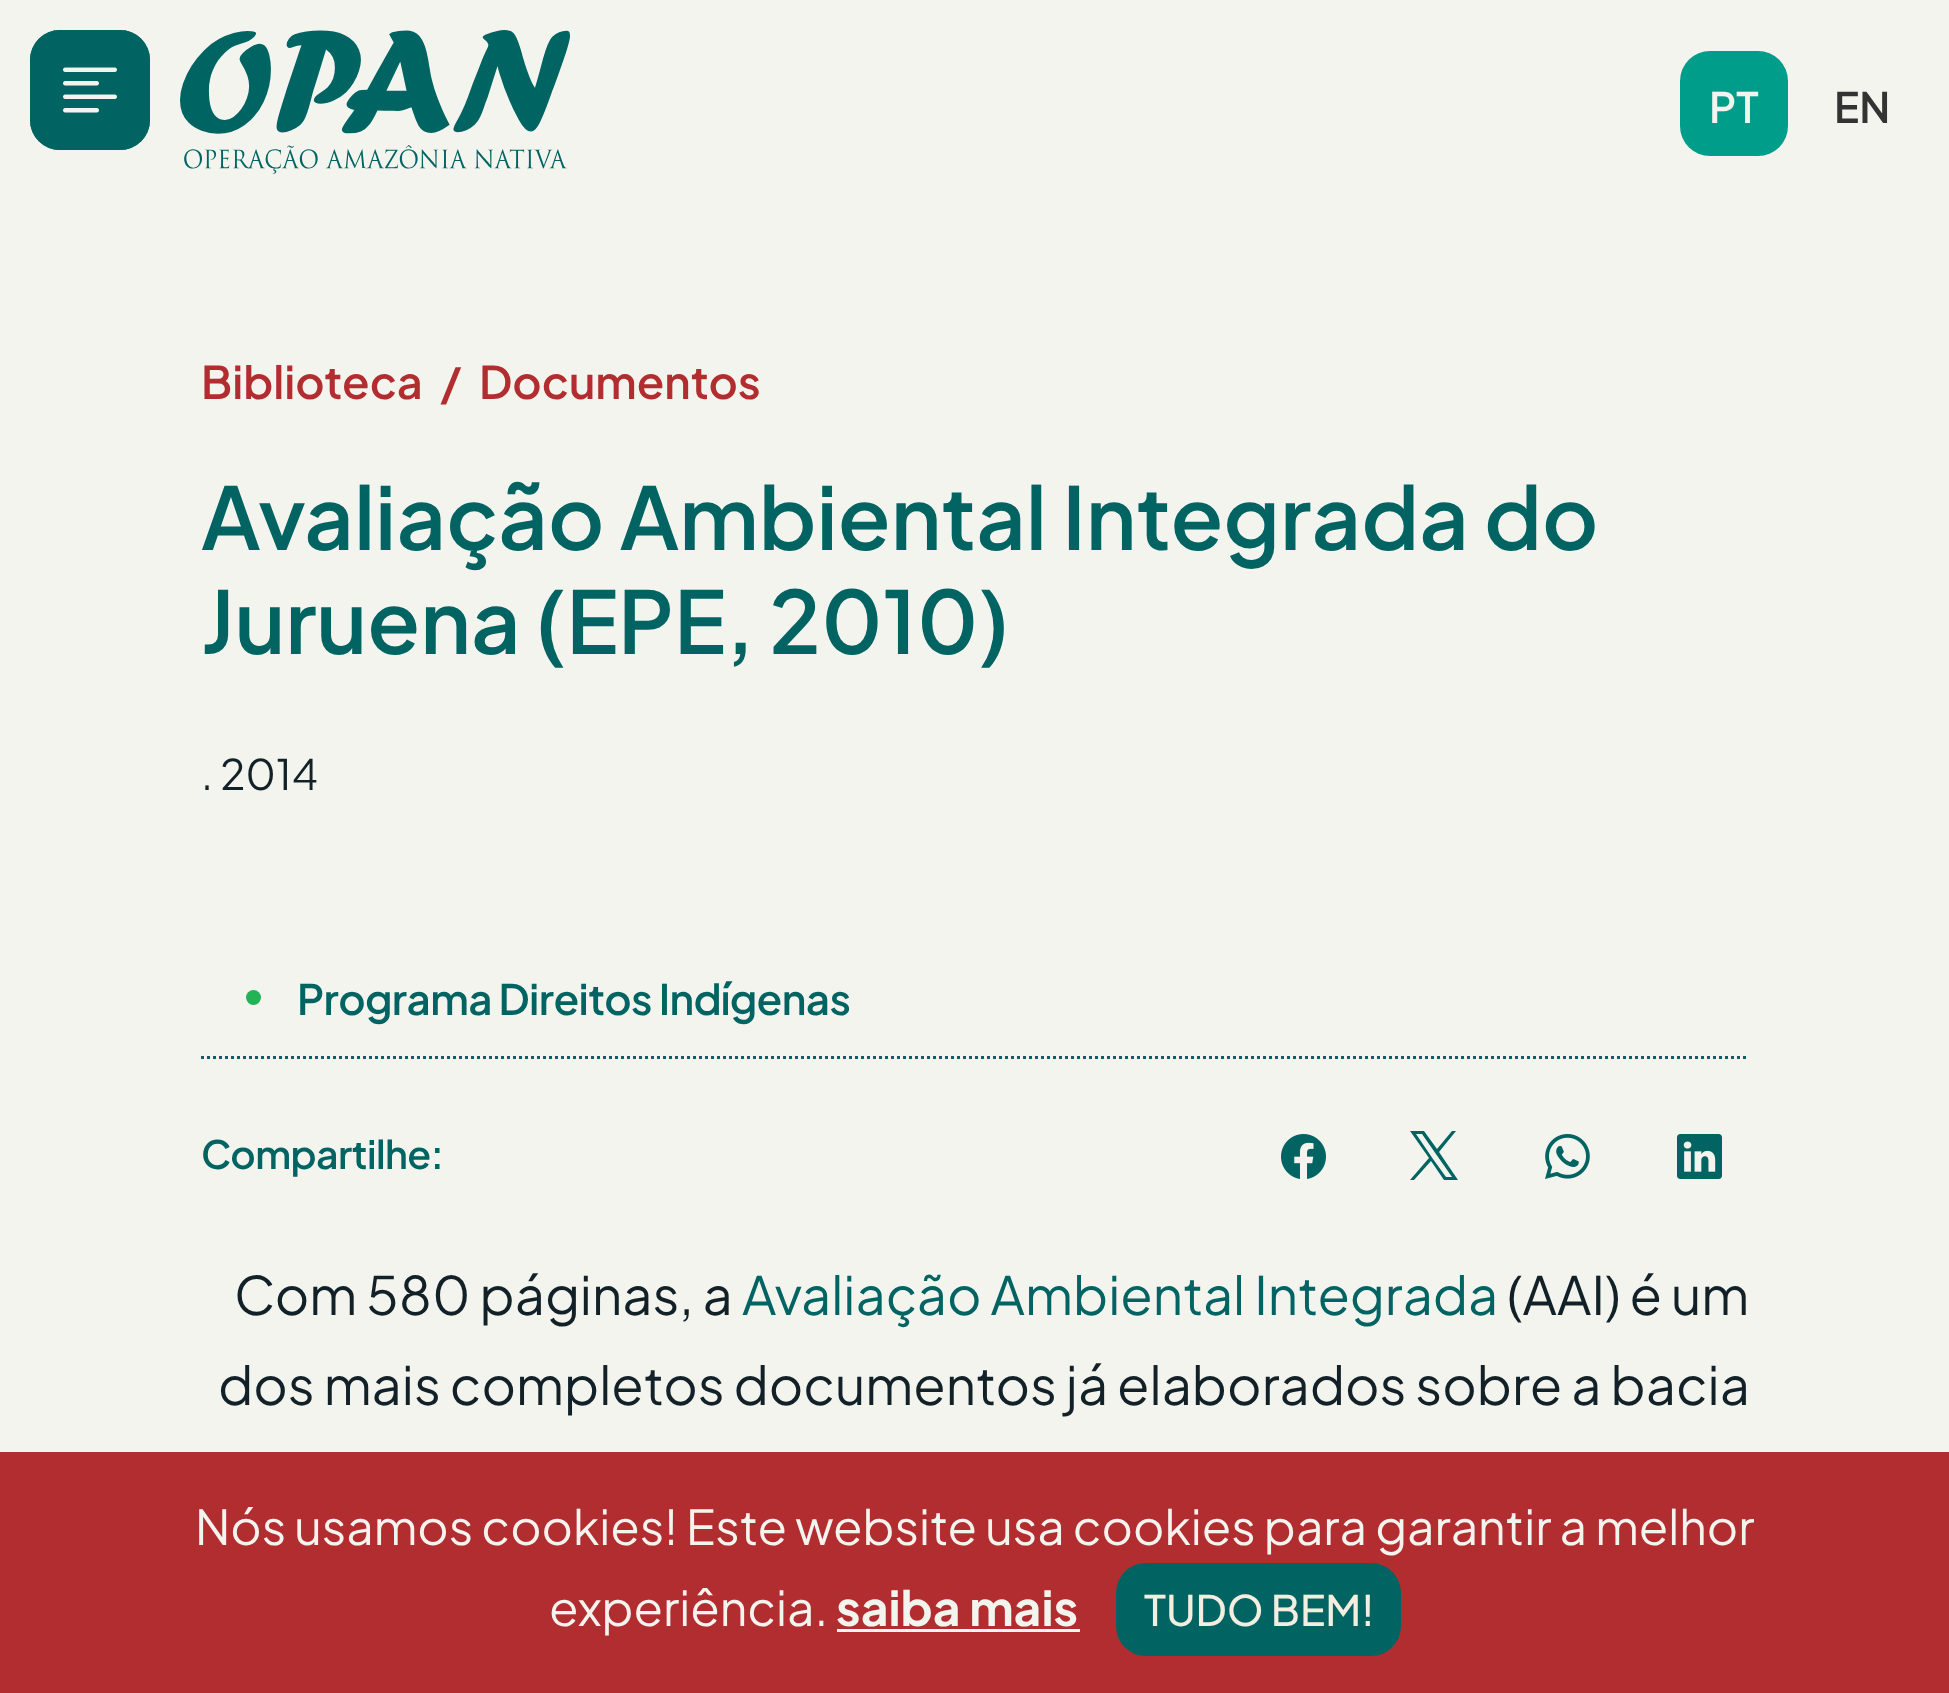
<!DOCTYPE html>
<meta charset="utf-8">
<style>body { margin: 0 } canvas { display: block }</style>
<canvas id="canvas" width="1949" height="1693"></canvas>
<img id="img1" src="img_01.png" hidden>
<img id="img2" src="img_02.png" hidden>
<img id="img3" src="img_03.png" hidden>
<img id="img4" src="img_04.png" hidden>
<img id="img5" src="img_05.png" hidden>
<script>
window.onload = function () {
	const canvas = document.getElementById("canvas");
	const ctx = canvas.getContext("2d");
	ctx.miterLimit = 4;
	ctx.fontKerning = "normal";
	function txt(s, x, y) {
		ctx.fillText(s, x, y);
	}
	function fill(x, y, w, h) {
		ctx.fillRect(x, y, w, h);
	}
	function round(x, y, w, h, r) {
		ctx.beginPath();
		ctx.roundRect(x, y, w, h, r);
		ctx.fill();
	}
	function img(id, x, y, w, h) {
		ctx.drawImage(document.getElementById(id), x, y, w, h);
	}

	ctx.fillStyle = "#F4F4EF";
	fill(0, 0, 1949, 1693);
	ctx.fillStyle = "#016462";
	round(30, 30, 120, 120, 30);
	img("img1", 63, 67, 54, 46);
	ctx.beginPath();
	ctx.roundRect(31.5, 31.5, 117, 117, 28.5);
	ctx.strokeStyle = "#016462";
	ctx.lineWidth = 3;
	ctx.stroke();
	img("img2", 180, 30, 390, 144);
	ctx.fillStyle = "#009D8B";
	round(1680, 51, 108, 105, 30);
	ctx.beginPath();
	ctx.moveTo(201, 1057.5);
	ctx.lineTo(1749, 1057.5);
	ctx.setLineDash([3, 3]);
	ctx.stroke();
	ctx.fillStyle = "#21B355";
	ctx.beginPath();
	ctx.arc(253.5, 997.5, 7.5, 0, Math.PI * 2);
	ctx.fill();
	img("img3", 1281, 1134, 45, 45);
	ctx.fillStyle = "#016462";
	ctx.beginPath();
	ctx.moveTo(1439, 1152);
	ctx.lineTo(1456, 1131);
	ctx.lineTo(1452, 1131);
	ctx.lineTo(1437, 1149);
	ctx.lineTo(1424, 1131);
	ctx.lineTo(1410, 1131);
	ctx.lineTo(1429, 1158);
	ctx.lineTo(1410, 1180);
	ctx.lineTo(1414, 1180);
	ctx.lineTo(1431, 1161);
	ctx.lineTo(1444, 1180);
	ctx.lineTo(1458, 1180);
	ctx.closePath();
	ctx.moveTo(1433, 1159);
	ctx.lineTo(1416, 1134);
	ctx.lineTo(1422, 1134);
	ctx.lineTo(1452, 1177);
	ctx.lineTo(1446, 1177);
	ctx.closePath();
	ctx.fill();
	img("img4", 1545, 1134, 45, 45);
	img("img5", 1677, 1134, 45, 45);
	ctx.fillStyle = "#B22D30";
	fill(0, 1452, 1949, 241);
	ctx.fillStyle = "#F4F4EF";
	fill(837, 1629, 243, 3);
	ctx.fillStyle = "#016462";
	ctx.beginPath();
	ctx.roundRect(1117.5, 1564.5, 282, 90, 28.5);
	ctx.fill();
	ctx.setLineDash([]);
	ctx.stroke();
	ctx.font = "600 42px Plus Jakarta Sans";
	ctx.fillStyle = "#F4F4EF";
	txt("PT", 1709, 123);
	ctx.fillStyle = "#333333";
	txt("EN", 1834, 123);
	ctx.font = "600 45px Plus Jakarta Sans";
	ctx.fillStyle = "#B22D30";
	txt("Biblioteca", 201, 399);
	txt("/", 440, 399);
	txt("Documentos", 479, 399);
	ctx.font = "600 86.4px Plus Jakarta Sans";
	ctx.fillStyle = "#016462";
	txt("Avaliação Ambiental Integrada do", 201, 550);
	txt("Juruena (EPE, 2010)", 201, 654);
	ctx.font = "42px Plus Jakarta Sans";
	ctx.fillStyle = "#122128";
	txt(". 2014", 201, 790);
	ctx.letterSpacing = "-0.6px";
	ctx.font = "600 42px Plus Jakarta Sans";
	ctx.fillStyle = "#016462";
	txt("Programa Direitos Indígenas", 297, 1015);
	ctx.font = "600 39px Plus Jakarta Sans";
	txt("Compartilhe:", 201, 1169);
	ctx.letterSpacing = "0px";
	ctx.font = "52.8px Plus Jakarta Sans";
	ctx.fillStyle = "#122128";
	txt("Com 580 páginas, a", 234, 1315);
	ctx.fillStyle = "#016462";
	txt("Avaliação Ambiental Integrada", 742, 1315);
	ctx.fillStyle = "#122128";
	txt("(AAI) é um", 1507, 1315);
	txt("dos mais completos documentos já elaborados sobre a bacia", 218, 1405);
	ctx.font = "48px Plus Jakarta Sans";
	ctx.fillStyle = "#F4F4EF";
	txt("Nós usamos cookies! Este website usa cookies para garantir a melhor", 195, 1545);
	txt("experiência.", 549, 1626);
	ctx.font = "bold 48px Plus Jakarta Sans";
	txt("saiba mais", 836, 1626);
	ctx.font = "500 42px Plus Jakarta Sans";
	ctx.fillStyle = "#F4EEE0";
	txt("TUDO BEM!", 1144, 1626);
};
</script>
